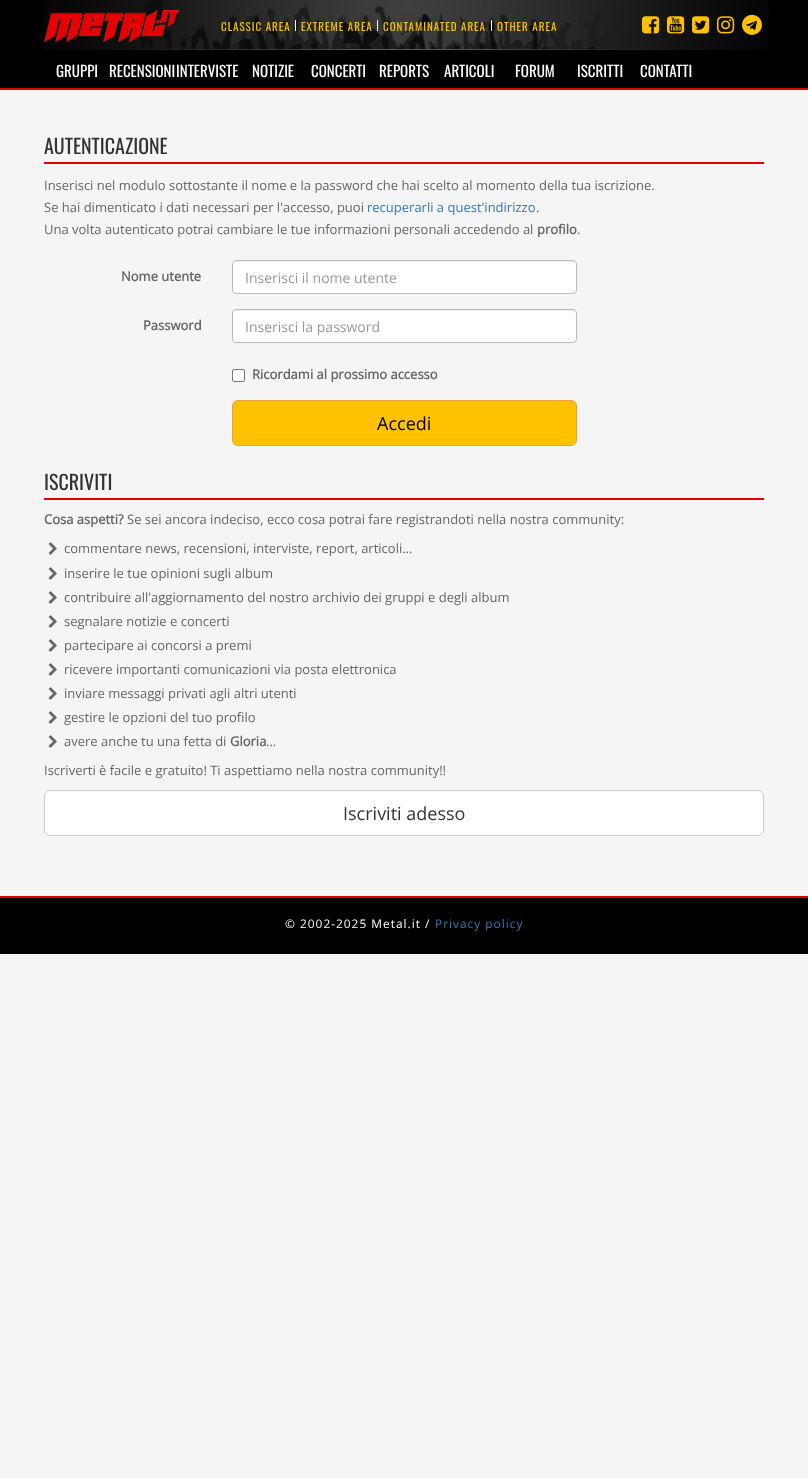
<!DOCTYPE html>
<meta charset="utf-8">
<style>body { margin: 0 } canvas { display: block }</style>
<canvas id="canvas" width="808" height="1478"></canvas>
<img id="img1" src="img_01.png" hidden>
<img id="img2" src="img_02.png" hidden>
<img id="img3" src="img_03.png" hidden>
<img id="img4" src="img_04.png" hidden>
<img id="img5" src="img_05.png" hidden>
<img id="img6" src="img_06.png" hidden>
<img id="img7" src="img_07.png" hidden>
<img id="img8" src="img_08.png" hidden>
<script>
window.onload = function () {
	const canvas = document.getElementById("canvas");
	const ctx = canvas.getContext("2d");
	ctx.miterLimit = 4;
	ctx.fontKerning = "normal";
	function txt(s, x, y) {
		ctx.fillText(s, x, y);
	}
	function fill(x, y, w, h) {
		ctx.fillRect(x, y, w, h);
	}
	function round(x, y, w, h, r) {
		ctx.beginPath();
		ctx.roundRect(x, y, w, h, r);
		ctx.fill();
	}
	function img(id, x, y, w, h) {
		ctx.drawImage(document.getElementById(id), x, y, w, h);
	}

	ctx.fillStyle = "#F5F5F5";
	fill(0, 0, 808, 1478);
	ctx.fillStyle = "#000000";
	fill(0, 0, 808, 88);
	img("img1", 43, 0, 726, 50);
	ctx.fillStyle = "#E70000";
	fill(0, 88, 808, 2);
	img("img2", 44, 10, 135, 32);
	ctx.fillStyle = "#FFFFFF";
	fill(295, 20, 1, 11);
	fill(377, 20, 1, 11);
	fill(491, 20, 1, 11);
	img("img3", 642, 16, 18, 18);
	img("img4", 667, 16, 18, 18);
	img("img5", 692, 16, 18, 18);
	img("img6", 717, 16, 18, 18);
	img("img7", 742, 14, 20, 21);
	ctx.fillStyle = "#E70000";
	fill(44, 162, 720, 2);
	ctx.fillStyle = "#FFFFFF";
	round(232, 260, 345, 34, 4);
	ctx.fillStyle = "#ECECEC";
	ctx.beginPath();
	ctx.moveTo(236, 262);
	ctx.lineTo(573, 262);
	ctx.bezierCurveTo(575, 262, 576, 263, 576, 265);
	ctx.bezierCurveTo(576, 263, 575, 261, 573, 261);
	ctx.lineTo(236, 261);
	ctx.bezierCurveTo(234, 261, 233, 263, 233, 265);
	ctx.bezierCurveTo(233, 263, 234, 262, 236, 262);
	ctx.closePath();
	ctx.fill();
	ctx.beginPath();
	ctx.roundRect(232.5, 260.5, 344, 33, 3.5);
	ctx.strokeStyle = "#BBBBBB";
	ctx.stroke();
	ctx.fillStyle = "#FFFFFF";
	round(232, 309, 345, 34, 4);
	ctx.fillStyle = "#ECECEC";
	ctx.beginPath();
	ctx.moveTo(236, 311);
	ctx.lineTo(573, 311);
	ctx.bezierCurveTo(575, 311, 576, 312, 576, 314);
	ctx.bezierCurveTo(576, 312, 575, 310, 573, 310);
	ctx.lineTo(236, 310);
	ctx.bezierCurveTo(234, 310, 233, 312, 233, 314);
	ctx.bezierCurveTo(233, 312, 234, 311, 236, 311);
	ctx.closePath();
	ctx.fill();
	ctx.beginPath();
	ctx.roundRect(232.5, 309.5, 344, 33, 3.5);
	ctx.stroke();
	ctx.fillStyle = "#FFFFFF";
	ctx.beginPath();
	ctx.roundRect(232.5, 369.5, 12, 12, 1.5);
	ctx.fill();
	ctx.strokeStyle = "#767676";
	ctx.stroke();
	ctx.fillStyle = "#FFC100";
	ctx.beginPath();
	ctx.roundRect(232.5, 400.5, 344, 45, 5.5);
	ctx.fill();
	ctx.strokeStyle = "#EEA236";
	ctx.stroke();
	ctx.fillStyle = "#E70000";
	fill(44, 498, 720, 2);
	img("img8", 48, 542, 9, 13);
	img("img8", 48, 567, 9, 13);
	img("img8", 48, 591, 9, 13);
	img("img8", 48, 615, 9, 13);
	img("img8", 48, 639, 9, 13);
	img("img8", 48, 663, 9, 13);
	img("img8", 48, 687, 9, 13);
	img("img8", 48, 711, 9, 13);
	img("img8", 48, 735, 9, 13);
	ctx.fillStyle = "#FFFFFF";
	ctx.beginPath();
	ctx.roundRect(44.5, 790.5, 719, 45, 5.5);
	ctx.fill();
	ctx.strokeStyle = "#CCCCCC";
	ctx.stroke();
	ctx.fillStyle = "#000000";
	fill(0, 898, 808, 56);
	ctx.fillStyle = "#E70000";
	fill(0, 896, 808, 2);
	ctx.letterSpacing = "1px";
	ctx.font = "11px Oswald";
	ctx.fillStyle = "#FFC100";
	txt("CLASSIC AREA", 221, 31);
	txt("EXTREME AREA", 301, 31);
	txt("CONTAMINATED AREA", 383, 31);
	txt("OTHER AREA", 497, 31);
	ctx.letterSpacing = "0px";
	ctx.font = "15px Oswald";
	ctx.fillStyle = "#FFFFFF";
	txt("GRUPPI", 56, 77);
	txt("RECENSIONI", 109, 77);
	txt("INTERVISTE", 176, 77);
	txt("NOTIZIE", 252, 77);
	txt("CONCERTI", 311, 77);
	txt("REPORTS", 379, 77);
	txt("ARTICOLI", 444, 77);
	txt("FORUM", 515, 77);
	txt("ISCRITTI", 577, 77);
	txt("CONTATTI", 640, 77);
	ctx.font = "20px Oswald";
	ctx.fillStyle = "#333333";
	txt("AUTENTICAZIONE", 44, 154);
	ctx.font = "13px Open Sans";
	ctx.fillStyle = "#666666";
	txt("Inserisci nel modulo sottostante il nome e la password che hai scelto al momento della tua iscrizione.", 44, 190);
	txt("Se hai dimenticato i dati necessari per l'accesso, puoi", 44, 212);
	ctx.fillStyle = "#337AB7";
	txt("recuperarli a quest'indirizzo", 367, 212);
	ctx.fillStyle = "#666666";
	txt(".", 536, 212);
	txt("Una volta autenticato potrai cambiare le tue informazioni personali accedendo al", 44, 234);
	ctx.font = "bold 13px Open Sans";
	txt("profilo", 537, 234);
	ctx.font = "13px Open Sans";
	txt(".", 577, 234);
	ctx.font = "bold 13px Open Sans";
	txt("Nome utente", 121, 281);
	ctx.font = "14px Open Sans";
	ctx.fillStyle = "#999999";
	txt("Inserisci il nome utente", 245, 283);
	ctx.font = "bold 13px Open Sans";
	ctx.fillStyle = "#666666";
	txt("Password", 143, 330);
	ctx.font = "14px Open Sans";
	ctx.fillStyle = "#999999";
	txt("Inserisci la password", 245, 332);
	ctx.font = "bold 13px Open Sans";
	ctx.fillStyle = "#666666";
	txt("Ricordami al prossimo accesso", 252, 379);
	ctx.font = "18px Open Sans";
	ctx.fillStyle = "#000000";
	txt("Accedi", 377, 430);
	ctx.font = "20px Oswald";
	ctx.fillStyle = "#333333";
	txt("ISCRIVITI", 44, 490);
	ctx.font = "bold 13px Open Sans";
	ctx.fillStyle = "#666666";
	txt("Cosa aspetti?", 44, 524);
	ctx.font = "13px Open Sans";
	txt("Se sei ancora indeciso, ecco cosa potrai fare registrandoti nella nostra community:", 127, 524);
	txt("commentare news, recensioni, interviste, report, articoli...", 64, 553);
	txt("inserire le tue opinioni sugli album", 64, 578);
	txt("contribuire all'aggiornamento del nostro archivio dei gruppi e degli album", 64, 602);
	txt("segnalare notizie e concerti", 64, 626);
	txt("partecipare ai concorsi a premi", 64, 650);
	txt("ricevere importanti comunicazioni via posta elettronica", 64, 674);
	txt("inviare messaggi privati agli altri utenti", 64, 698);
	txt("gestire le opzioni del tuo profilo", 64, 722);
	txt("avere anche tu una fetta di", 64, 746);
	ctx.font = "bold 13px Open Sans";
	txt("Gloria", 230, 746);
	ctx.font = "13px Open Sans";
	txt("...", 266, 746);
	txt("Iscriverti è facile e gratuito! Ti aspettiamo nella nostra community!!", 44, 775);
	ctx.font = "18px Open Sans";
	ctx.fillStyle = "#333333";
	txt("Iscriviti adesso", 343, 820);
	ctx.letterSpacing = "1px";
	ctx.font = "11.9px Open Sans";
	ctx.fillStyle = "#FFFFFF";
	txt("© 2002-2025 Metal.it /", 285, 928);
	ctx.fillStyle = "#337AB7";
	txt("Privacy policy", 435, 928);
};
</script>
